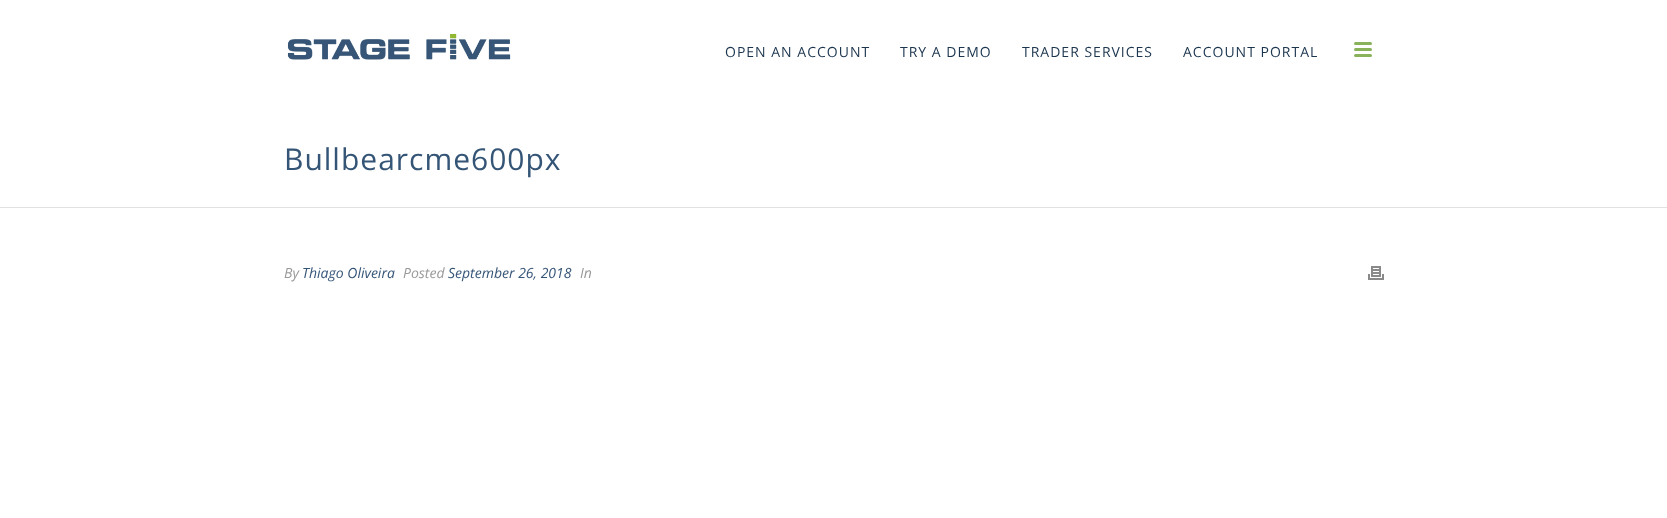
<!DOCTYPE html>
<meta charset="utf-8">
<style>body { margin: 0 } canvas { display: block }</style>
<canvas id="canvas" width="1667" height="518"></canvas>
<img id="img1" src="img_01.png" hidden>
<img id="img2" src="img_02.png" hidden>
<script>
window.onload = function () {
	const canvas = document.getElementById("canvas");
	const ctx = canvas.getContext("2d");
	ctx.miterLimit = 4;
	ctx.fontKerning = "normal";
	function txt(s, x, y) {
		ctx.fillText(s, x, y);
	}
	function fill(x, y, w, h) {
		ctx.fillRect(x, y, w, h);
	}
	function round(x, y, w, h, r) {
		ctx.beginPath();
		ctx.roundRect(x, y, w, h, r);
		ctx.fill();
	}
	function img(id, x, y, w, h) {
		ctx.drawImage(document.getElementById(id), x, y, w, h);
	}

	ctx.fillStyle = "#FFFFFF";
	fill(0, 0, 1667, 518);
	ctx.fillStyle = "#E2E2E2";
	fill(0, 207, 1667, 1);
	img("img1", 287, 33, 224, 27);
	ctx.fillStyle = "#89B25B";
	round(1354, 42, 18, 3, 1.5);
	round(1354, 48, 18, 3, 1.5);
	round(1354, 54, 18, 3, 1.5);
	img("img2", 1368, 266, 16, 14);
	ctx.letterSpacing = "1px";
	ctx.font = "14px Open Sans";
	ctx.fillStyle = "#1B354E";
	txt("OPEN AN ACCOUNT", 725, 57);
	txt("TRY A DEMO", 900, 57);
	txt("TRADER SERVICES", 1022, 57);
	txt("ACCOUNT PORTAL", 1183, 57);
	ctx.font = "30px Open Sans";
	ctx.fillStyle = "#355577";
	txt("Bullbearcme600px", 284, 170);
	ctx.letterSpacing = "0px";
	ctx.font = "italic 14px Open Sans";
	ctx.fillStyle = "#999999";
	txt("By", 284, 278);
	ctx.fillStyle = "#355577";
	txt("Thiago Oliveira", 302, 278);
	ctx.fillStyle = "#999999";
	txt("Posted", 403, 278);
	ctx.fillStyle = "#355577";
	txt("September 26, 2018", 448, 278);
	ctx.fillStyle = "#999999";
	txt("In", 580, 278);
};
</script>
